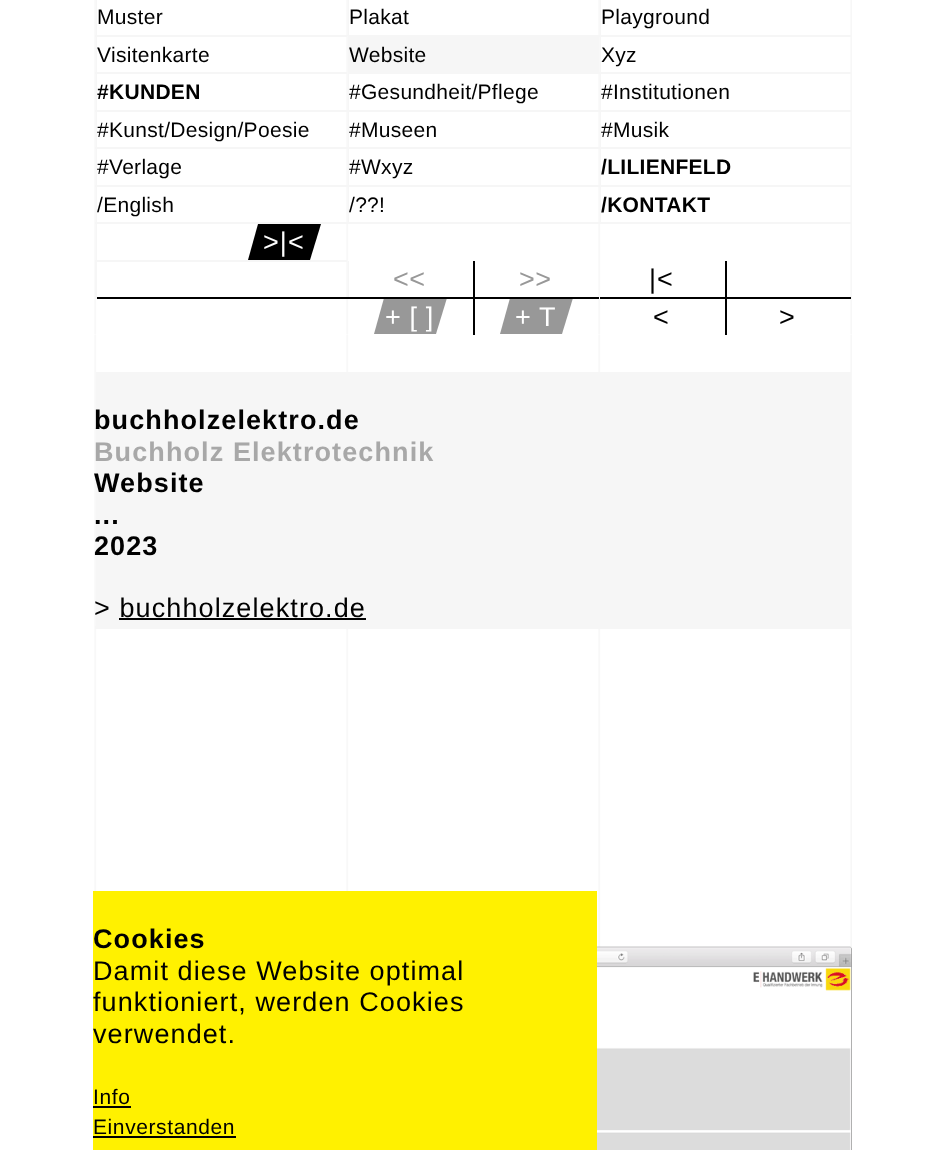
<!DOCTYPE html>
<meta charset="utf-8">
<style>body { margin: 0 } canvas { display: block }</style>
<canvas id="canvas" width="945" height="1150"></canvas>
<img id="img1" src="img_01.png" hidden>
<img id="img2" src="img_02.png" hidden>
<img id="img3" src="img_03.png" hidden>
<script>
window.onload = function () {
	const canvas = document.getElementById("canvas");
	const ctx = canvas.getContext("2d");
	ctx.miterLimit = 4;
	ctx.fontKerning = "normal";
	function txt(s, x, y) {
		ctx.fillText(s, x, y);
	}
	function fill(x, y, w, h) {
		ctx.fillRect(x, y, w, h);
	}
	function img(id, x, y, w, h) {
		ctx.drawImage(document.getElementById(id), x, y, w, h);
	}

	ctx.fillStyle = "#FFFFFF";
	fill(0, 0, 945, 1150);
	img("img1", 94, 0, 758, 335);
	ctx.fillStyle = "#F6F6F6";
	fill(95, 35, 252, 2);
	fill(96, 0, 1, 36);
	fill(347, 35, 252, 1);
	fill(348, 0, 1, 36);
	fill(599, 35, 252, 2);
	fill(600, 0, 1, 36);
	fill(95, 72, 252, 2);
	fill(96, 36, 1, 38);
	fill(348, 36, 251, 38);
	fill(599, 72, 252, 2);
	fill(600, 36, 1, 38);
	fill(95, 110, 756, 2);
	fill(96, 74, 1, 37);
	fill(348, 74, 1, 37);
	fill(600, 74, 1, 37);
	fill(95, 147, 756, 2);
	fill(96, 111, 1, 38);
	fill(348, 111, 1, 38);
	fill(600, 111, 1, 38);
	fill(95, 185, 756, 2);
	fill(96, 149, 1, 37);
	fill(348, 149, 1, 37);
	fill(600, 149, 1, 37);
	fill(95, 222, 756, 2);
	fill(96, 186, 1, 38);
	fill(348, 186, 1, 38);
	fill(600, 186, 1, 38);
	ctx.fillStyle = "#000000";
	ctx.beginPath();
	ctx.moveTo(310, 260);
	ctx.lineTo(248, 260);
	ctx.lineTo(258, 224);
	ctx.lineTo(321, 224);
	ctx.closePath();
	ctx.fill();
	ctx.fillStyle = "#F6F6F6";
	fill(95, 260, 252, 2);
	fill(96, 224, 1, 37);
	fill(348, 261, 1, 38);
	ctx.fillStyle = "#000000";
	fill(95, 297, 253, 2);
	ctx.fillStyle = "#F6F6F6";
	fill(95, 261, 2, 38);
	ctx.fillStyle = "#000000";
	fill(473, 261, 2, 74);
	fill(348, 297, 251, 2);
	ctx.save();
	ctx.beginPath();
	ctx.rect(348, 299, 125, 36);
	ctx.clip();
	ctx.fillStyle = "#989898";
	ctx.beginPath();
	ctx.moveTo(436, 334);
	ctx.lineTo(374, 334);
	ctx.lineTo(384, 298);
	ctx.lineTo(447, 298);
	ctx.closePath();
	ctx.fill();
	ctx.restore();
	ctx.save();
	ctx.beginPath();
	ctx.rect(474, 299, 125, 36);
	ctx.clip();
	ctx.fillStyle = "#989898";
	ctx.beginPath();
	ctx.moveTo(562, 334);
	ctx.lineTo(500, 334);
	ctx.lineTo(510, 298);
	ctx.lineTo(573, 298);
	ctx.closePath();
	ctx.fill();
	ctx.restore();
	fill(725, 261, 2, 74);
	fill(600, 297, 251, 2);
	img("img2", 94, 335, 758, 614);
	ctx.fillStyle = "#F6F6F6";
	fill(95, 626, 757, 3);
	fill(96, 372, 755, 254);
	ctx.fillStyle = "#000000";
	fill(119, 618, 247, 2);
	img("img3", 597, 946, 255, 204);
	ctx.fillStyle = "#FFF100";
	fill(93, 891, 504, 259);
	ctx.fillStyle = "#000000";
	fill(93, 1106, 38, 2);
	fill(93, 1136, 143, 2);
	ctx.letterSpacing = "0.3px";
	ctx.font = "21px Liberation Sans";
	txt("Muster", 97, 24);
	txt("Plakat", 349, 24);
	txt("Playground", 601, 24);
	txt("Visitenkarte", 97, 62);
	txt("Website", 349, 62);
	txt("Xyz", 601, 62);
	ctx.font = "bold 21px Liberation Sans";
	txt("#KUNDEN", 97, 99);
	ctx.font = "21px Liberation Sans";
	txt("#Gesundheit/Pflege", 349, 99);
	txt("#Institutionen", 601, 99);
	txt("#Kunst/Design/Poesie", 97, 137);
	txt("#Museen", 349, 137);
	txt("#Musik", 601, 137);
	txt("#Verlage", 97, 174);
	txt("#Wxyz", 349, 174);
	ctx.font = "bold 21px Liberation Sans";
	txt("/LILIENFELD", 601, 174);
	ctx.font = "21px Liberation Sans";
	txt("/English", 97, 212);
	txt("/??!", 349, 212);
	ctx.font = "bold 21px Liberation Sans";
	txt("/KONTAKT", 601, 212);
	ctx.letterSpacing = "1.1px";
	ctx.font = "27px Liberation Sans";
	ctx.fillStyle = "#FFFFFF";
	txt(">|<", 263, 251);
	ctx.letterSpacing = "0.6px";
	ctx.fillStyle = "#989898";
	txt("<<", 393, 288);
	txt(">>", 519, 288);
	ctx.fillStyle = "#FFFFFF";
	txt("+ [ ]", 385, 326);
	txt("+ T", 515, 326);
	ctx.letterSpacing = "1.1px";
	ctx.fillStyle = "#000000";
	txt("|<", 649, 288);
	txt("<", 653, 326);
	txt(">", 779, 326);
	ctx.font = "bold 27px Liberation Sans";
	txt("buchholzelektro.de", 94, 429);
	ctx.fillStyle = "#A8A8A8";
	txt("Buchholz Elektrotechnik", 94, 461);
	ctx.fillStyle = "#000000";
	txt("Website", 94, 492);
	txt("...", 94, 524);
	txt("2023", 94, 555);
	ctx.font = "27px Liberation Sans";
	txt("> buchholzelektro.de", 94, 617);
	ctx.font = "bold 27px Liberation Sans";
	txt("Cookies", 93, 948);
	ctx.font = "27px Liberation Sans";
	txt("Damit diese Website optimal", 93, 980);
	txt("funktioniert, werden Cookies", 93, 1011);
	txt("verwendet.", 93, 1043);
	ctx.letterSpacing = "0.6px";
	ctx.font = "21px Liberation Sans";
	txt("Info", 93, 1104);
	txt("Einverstanden", 93, 1134);
};
</script>
